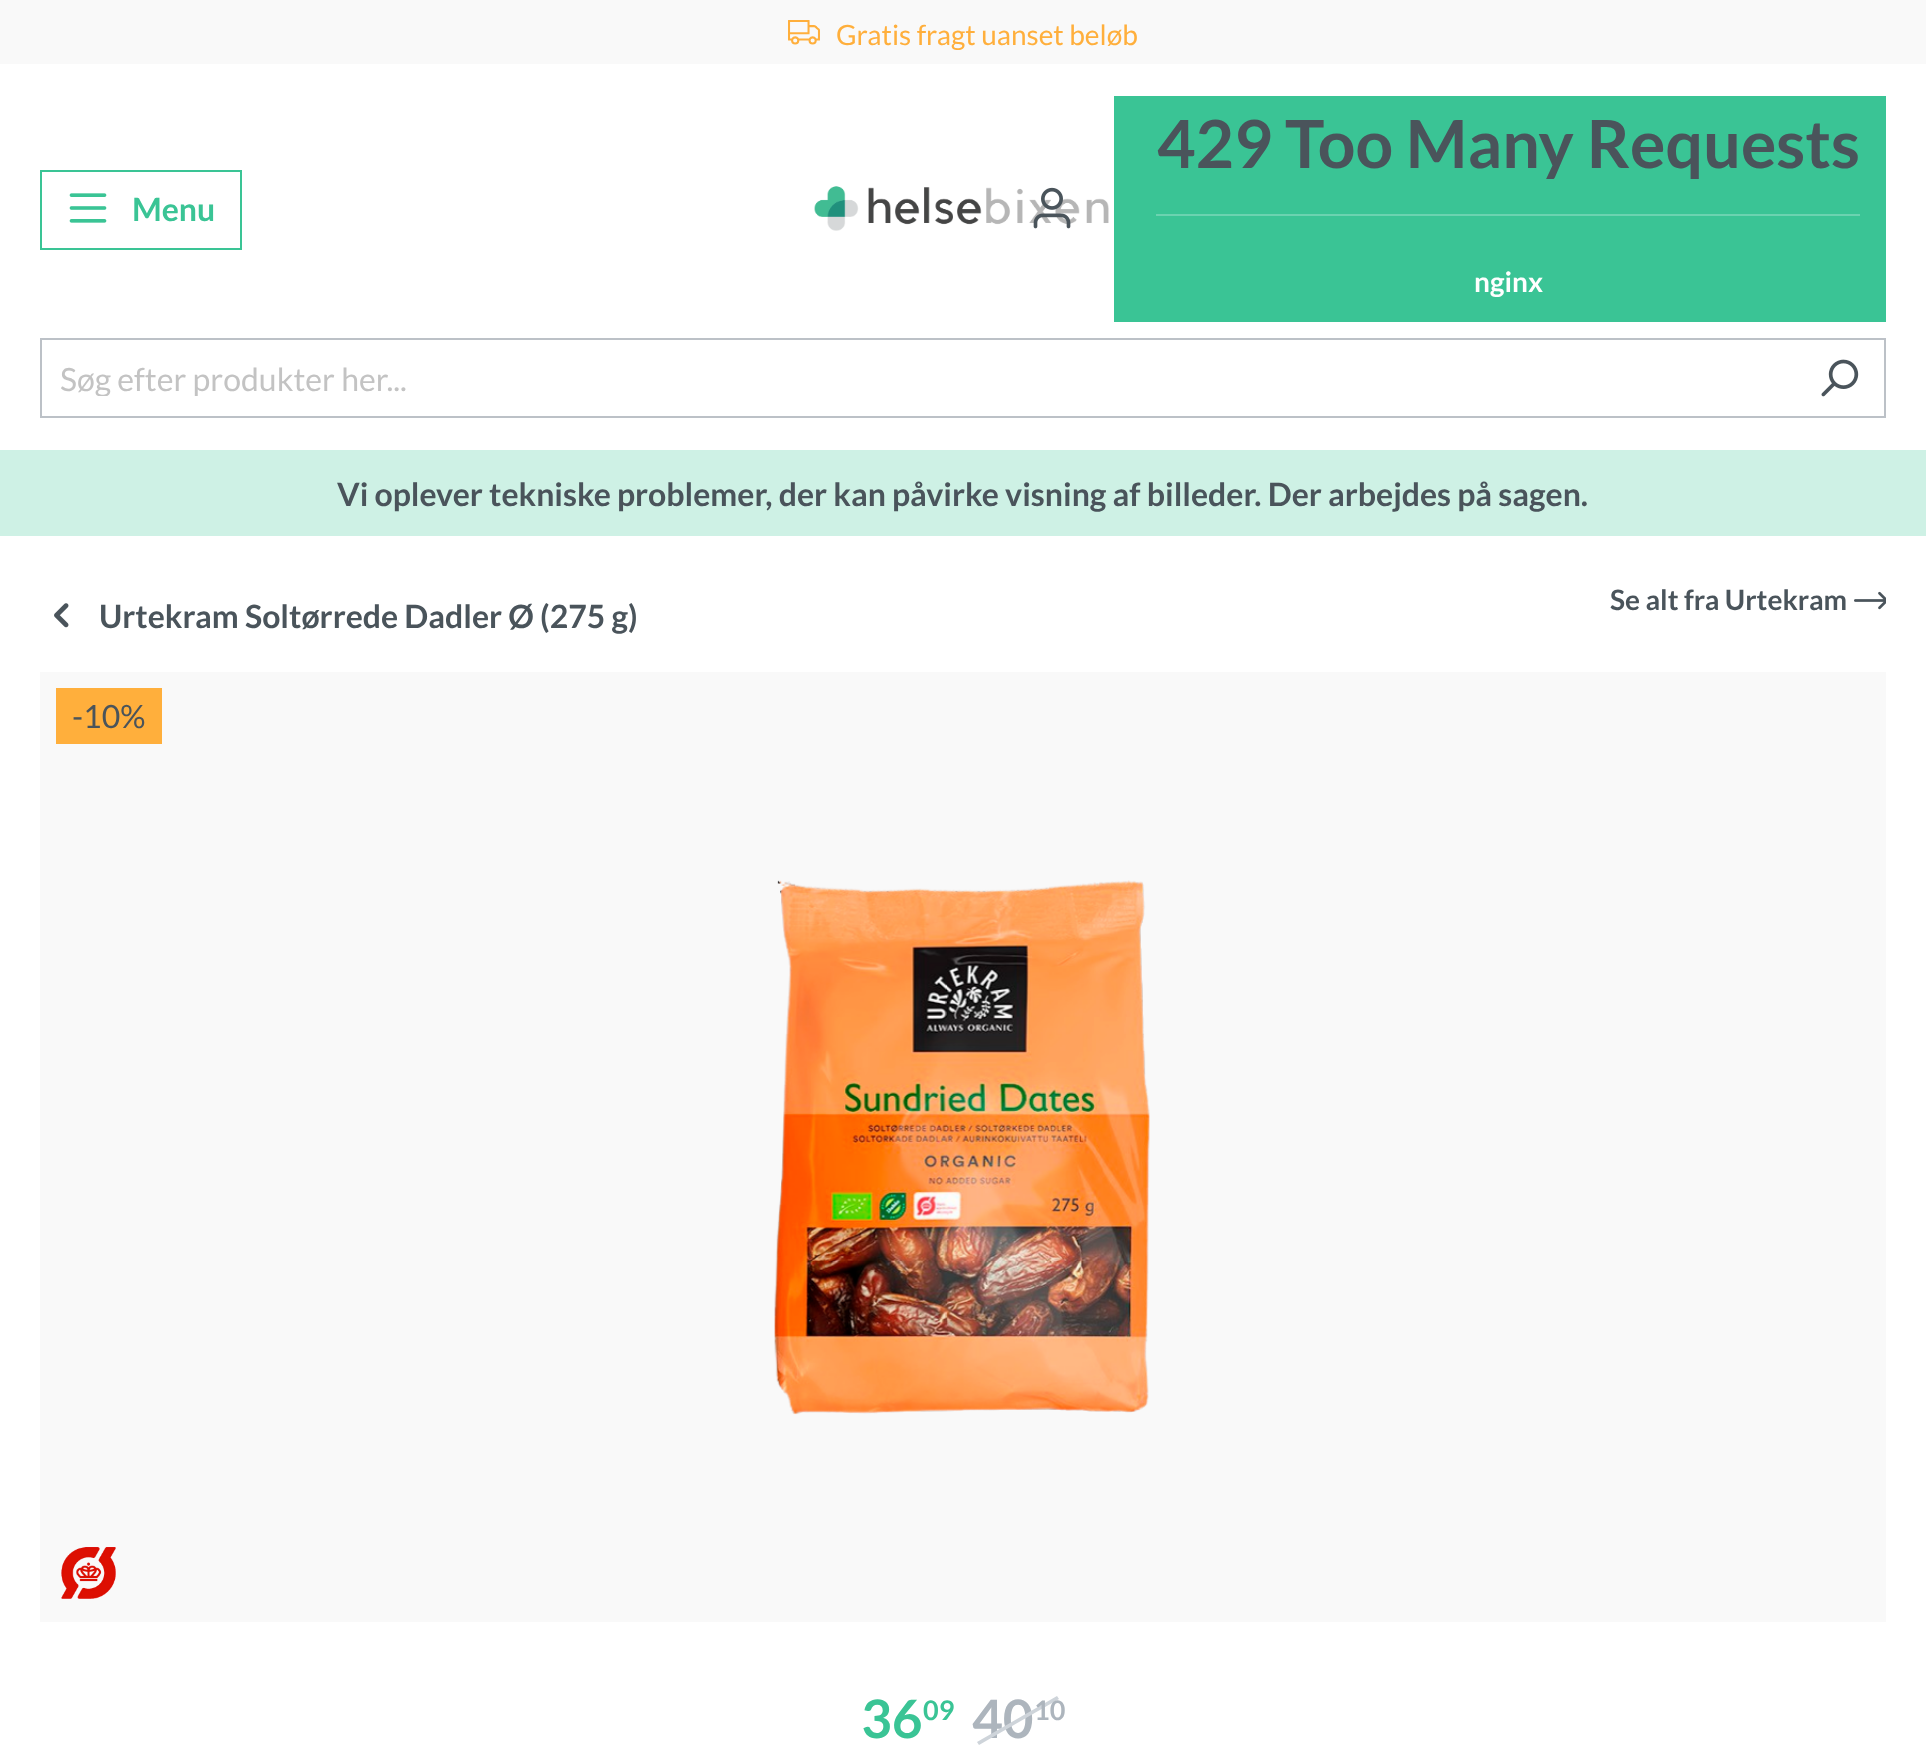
<!DOCTYPE html>
<meta charset="utf-8">
<style>body { margin: 0 } canvas { display: block }</style>
<canvas id="canvas" width="1926" height="1752"></canvas>
<img id="img1" src="img_01.png" hidden>
<img id="img2" src="img_02.png" hidden>
<img id="img3" src="img_03.png" hidden>
<img id="img4" src="img_04.png" hidden>
<img id="img5" src="img_05.png" hidden>
<img id="img6" src="img_06.png" hidden>
<img id="img7" src="img_07.png" hidden>
<img id="img8" src="img_08.png" hidden>
<img id="img9" src="img_09.png" hidden>
<script>
window.onload = function () {
	const canvas = document.getElementById("canvas");
	const ctx = canvas.getContext("2d");
	ctx.miterLimit = 4;
	ctx.fontKerning = "normal";
	function txt(s, x, y) {
		ctx.fillText(s, x, y);
	}
	function fill(x, y, w, h) {
		ctx.fillRect(x, y, w, h);
	}
	function img(id, x, y, w, h) {
		ctx.drawImage(document.getElementById(id), x, y, w, h);
	}

	ctx.fillStyle = "#FFFFFF";
	fill(0, 0, 1926, 1752);
	ctx.fillStyle = "#F9F9F9";
	fill(0, 0, 1926, 64);
	img("img1", 788, 20, 32, 25);
	ctx.strokeStyle = "#3AC495";
	ctx.lineWidth = 2;
	ctx.strokeRect(41, 171, 200, 78);
	img("img2", 69, 193, 38, 30);
	img("img3", 814, 186, 295, 45);
	img("img4", 1033, 187, 38, 42);
	ctx.fillStyle = "#3AC495";
	fill(1114, 96, 772, 226);
	ctx.fillStyle = "#6BD3B0";
	fill(1156, 214, 704, 2);
	ctx.fillStyle = "#BCC1C7";
	fill(40, 338, 1846, 2);
	fill(40, 416, 1754, 2);
	fill(40, 338, 2, 80);
	fill(1884, 338, 2, 80);
	fill(1792, 416, 94, 2);
	img("img5", 1821, 359, 38, 38);
	ctx.fillStyle = "#CEF1E5";
	fill(0, 450, 1926, 86);
	img("img6", 54, 603, 15, 25);
	img("img7", 1854, 591, 32, 19);
	ctx.fillStyle = "#F9F9F9";
	fill(40, 672, 1846, 950);
	ctx.fillStyle = "#FFAF3C";
	fill(56, 688, 106, 56);
	img("img8", 774, 880, 376, 535);
	img("img9", 61, 1547, 55, 52);
	ctx.font = "28px Lato";
	txt("Gratis fragt uanset beløb", 836, 45);
	ctx.font = "bold 32px Lato";
	ctx.fillStyle = "#3AC495";
	txt("Menu", 132, 221);
	ctx.font = "bold 66.25px Lato";
	ctx.fillStyle = "#4A545B";
	txt("429 Too Many Requests", 1157, 168);
	ctx.font = "bold 28px Lato";
	ctx.fillStyle = "#FFFFFF";
	txt("nginx", 1474, 292);
	ctx.save();
	ctx.beginPath();
	ctx.rect(60, 358, 1716, 38);
	ctx.clip();
	ctx.font = "32px Lato";
	ctx.fillStyle = "#C3C3C3";
	txt("Søg efter produkter her...", 60, 391);
	ctx.restore();
	ctx.font = "bold 32px Lato";
	ctx.fillStyle = "#4A545B";
	txt("Vi oplever tekniske problemer, der kan påvirke visning af billeder. Der arbejdes på sagen.", 337, 506);
	txt("Urtekram Soltørrede Dadler Ø (275 g)", 99, 628);
	ctx.font = "bold 28px Lato";
	txt("Se alt fra Urtekram", 1610, 610);
	ctx.font = "32px Lato";
	txt("-10%", 72, 728);
	ctx.font = "bold 53px Lato";
	ctx.fillStyle = "#3AC495";
	txt("36", 861, 1738);
	ctx.font = "bold 27px Lato";
	txt("09", 923, 1720);
	ctx.font = "bold 53px Lato";
	ctx.fillStyle = "#ADB5BD";
	txt("40", 972, 1738);
	ctx.fillStyle = "#CED4DA";
	ctx.beginPath();
	ctx.moveTo(977, 1742);
	ctx.lineTo(1057, 1696);
	ctx.lineTo(1059, 1699);
	ctx.lineTo(979, 1745);
	ctx.closePath();
	ctx.fill();
	ctx.font = "bold 27px Lato";
	ctx.fillStyle = "#ADB5BD";
	txt("10", 1034, 1720);
};
</script>
